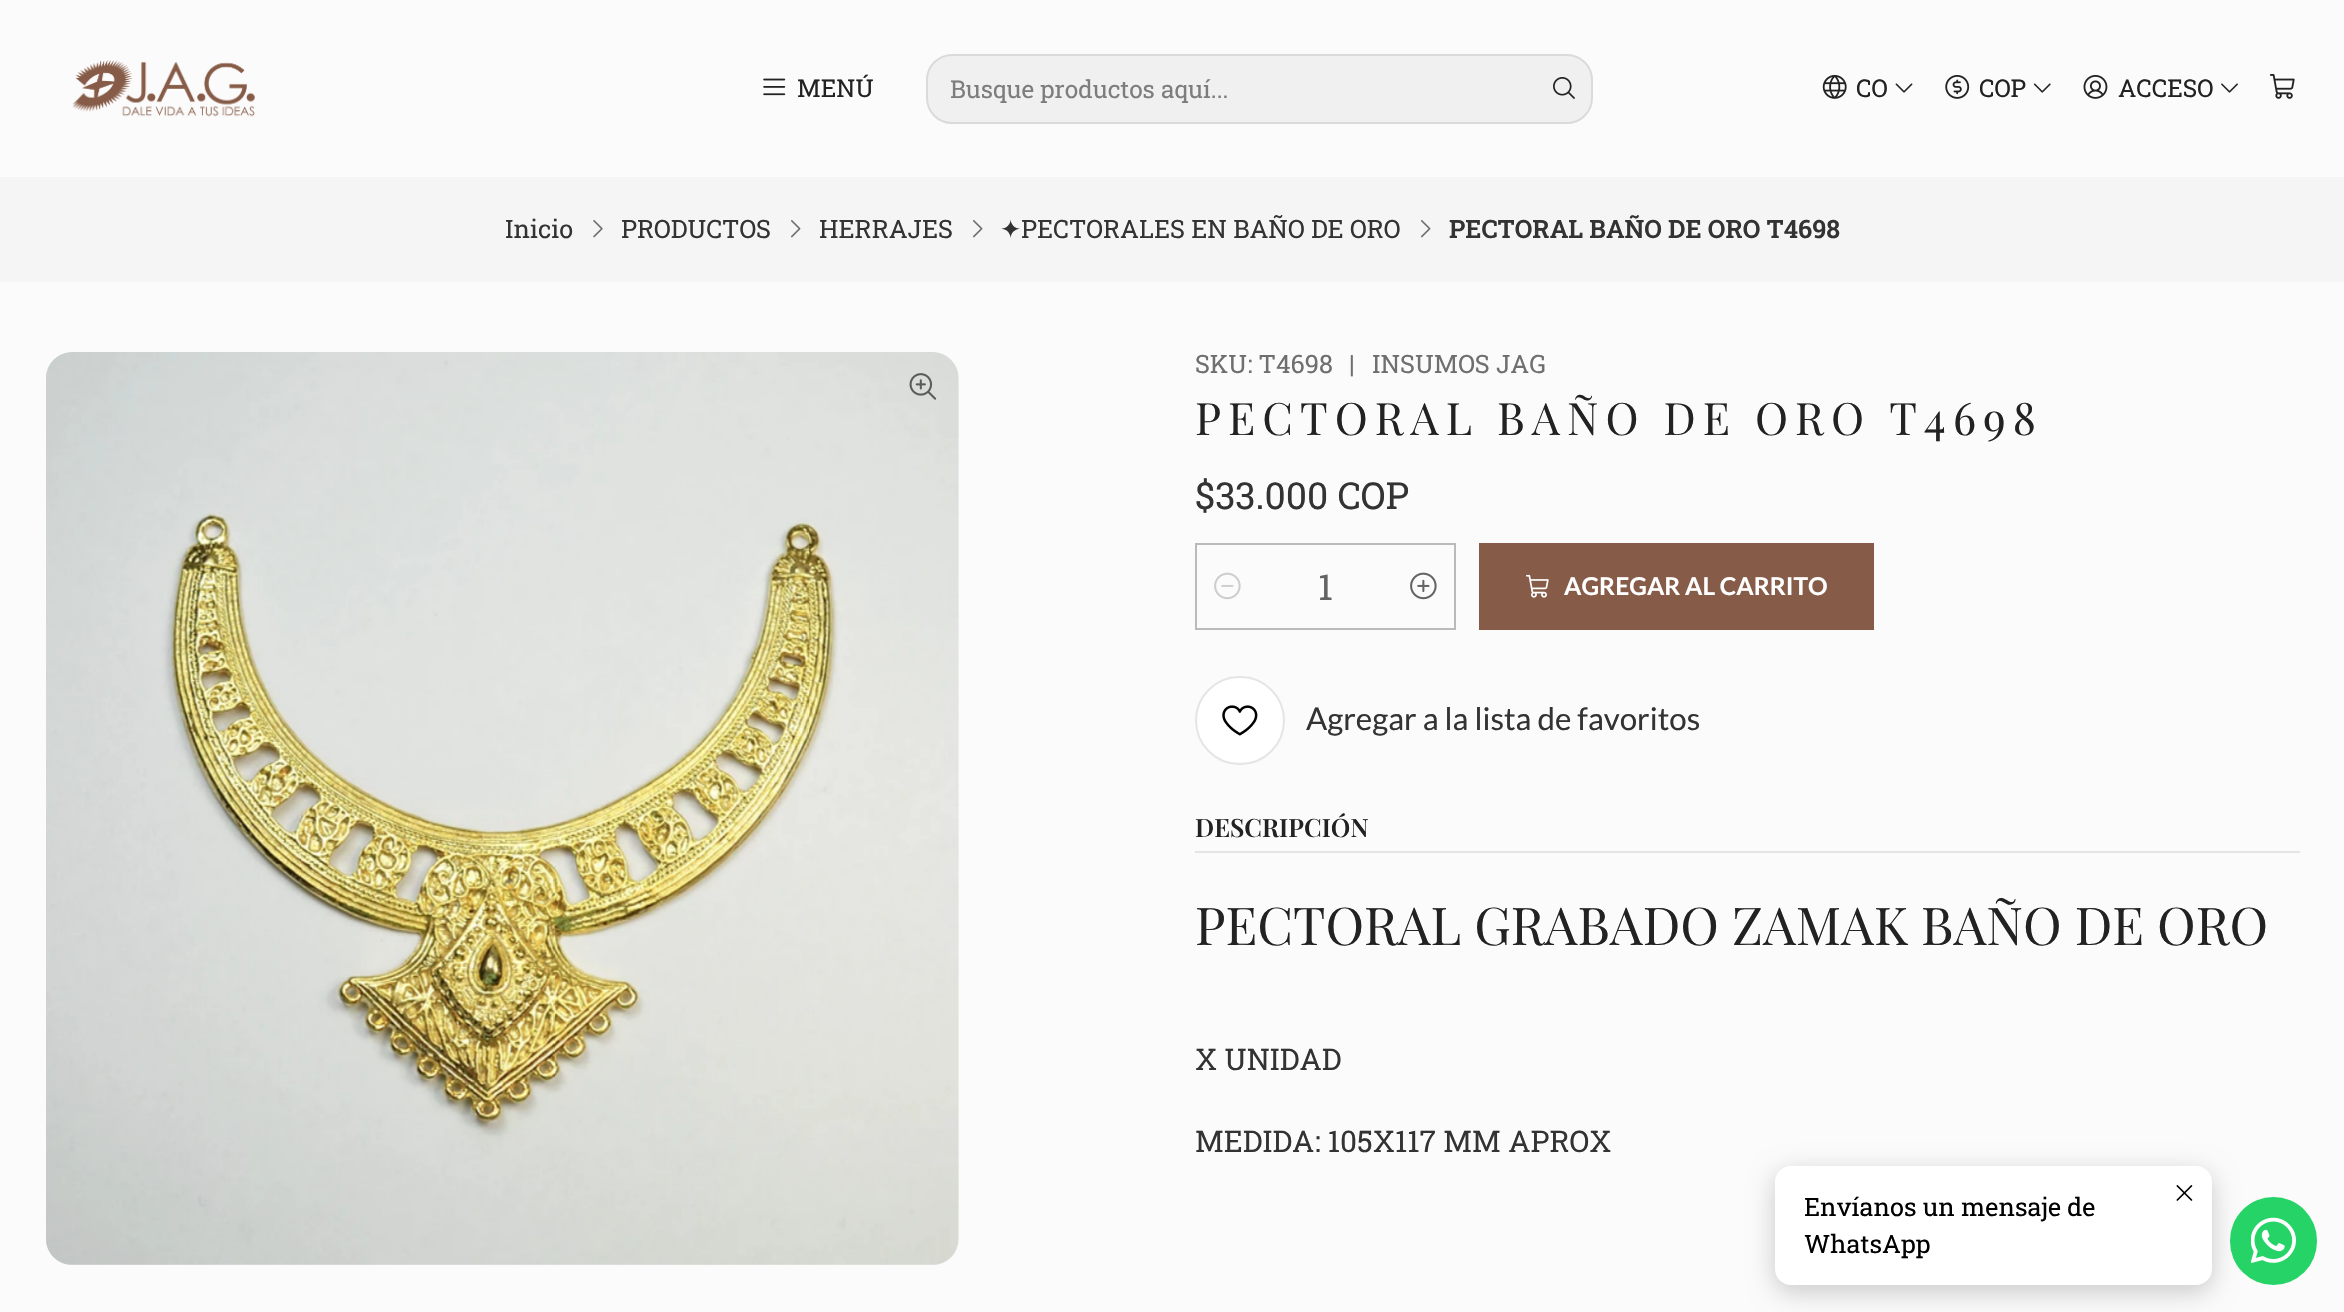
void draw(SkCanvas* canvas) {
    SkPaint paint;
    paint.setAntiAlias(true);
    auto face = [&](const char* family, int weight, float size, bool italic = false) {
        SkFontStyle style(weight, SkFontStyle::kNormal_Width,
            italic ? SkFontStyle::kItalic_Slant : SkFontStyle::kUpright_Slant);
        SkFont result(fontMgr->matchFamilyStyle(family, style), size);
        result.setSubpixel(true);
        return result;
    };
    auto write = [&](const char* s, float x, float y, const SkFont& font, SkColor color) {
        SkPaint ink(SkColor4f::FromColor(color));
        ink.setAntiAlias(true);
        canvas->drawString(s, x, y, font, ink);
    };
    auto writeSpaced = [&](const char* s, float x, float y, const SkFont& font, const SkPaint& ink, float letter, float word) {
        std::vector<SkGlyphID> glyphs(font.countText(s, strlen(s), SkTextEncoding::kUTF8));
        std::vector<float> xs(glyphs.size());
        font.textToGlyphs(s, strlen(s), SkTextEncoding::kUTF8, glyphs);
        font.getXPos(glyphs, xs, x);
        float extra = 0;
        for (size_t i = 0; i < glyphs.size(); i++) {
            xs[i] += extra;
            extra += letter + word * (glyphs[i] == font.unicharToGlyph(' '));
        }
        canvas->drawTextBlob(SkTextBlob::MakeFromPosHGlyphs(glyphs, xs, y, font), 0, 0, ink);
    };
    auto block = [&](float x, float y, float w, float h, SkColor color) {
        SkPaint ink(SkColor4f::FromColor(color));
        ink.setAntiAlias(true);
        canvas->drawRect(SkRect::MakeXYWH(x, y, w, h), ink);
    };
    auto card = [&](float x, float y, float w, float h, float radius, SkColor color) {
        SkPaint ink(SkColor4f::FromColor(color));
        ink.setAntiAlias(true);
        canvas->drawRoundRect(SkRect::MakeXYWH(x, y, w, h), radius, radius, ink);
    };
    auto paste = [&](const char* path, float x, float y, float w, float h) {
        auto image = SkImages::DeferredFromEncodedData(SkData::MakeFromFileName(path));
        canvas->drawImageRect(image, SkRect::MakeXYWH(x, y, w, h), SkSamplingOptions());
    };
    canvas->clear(SkColorSetRGB(252, 251, 251));
    paste("pic1.png", 72, 60, 183, 57);
    paste("pic2.png", 763, 78, 23, 18);
    auto kFont1 = face("Roboto Slab", 400, 24.5f);
    write("MENÚ", 797, 97, kFont1, SkColorSetRGB(34, 34, 34));
    card(926, 54, 667, 70, 26, SkColorSetRGB(241, 240, 240));
    paint.setStyle(SkPaint::kStroke_Style);
    paint.setStrokeWidth(2);
    paint.setColor(SkColorSetARGB(26, 34, 34, 34));
    canvas->drawRoundRect(SkRect::MakeXYWH(927, 55, 665, 68), 25, 25, paint);
    write("Busque productos aquí...", 950, 98, kFont1, SkColorSetRGB(125, 125, 125));
    paste("pic3.png", 1553, 77, 22, 22);
    paste("pic4.png", 1822, 74, 25, 25);
    write("CO", 1856, 97, kFont1, SkColorSetRGB(34, 34, 34));
    paste("pic5.png", 1895, 83, 18, 10);
    paste("pic6.png", 1945, 74, 25, 25);
    write("COP", 1979, 97, kFont1, SkColorSetRGB(34, 34, 34));
    paste("pic7.png", 2033, 83, 18, 10);
    paste("pic8.png", 2083, 74, 25, 25);
    write("ACCESO", 2118, 97, kFont1, SkColorSetRGB(34, 34, 34));
    paste("pic9.png", 2221, 83, 17, 10);
    paste("pic10.png", 2269, 74, 26, 25);
    block(0, 177, 2344, 105, SkColorSetRGB(245, 245, 245));
    auto kFont2 = face("Roboto Slab", 400, 25.25f);
    write("Inicio", 505, 238, kFont2, SkColorSetRGB(51, 51, 51));
    paste("pic11.png", 593, 220, 10, 18);
    write("PRODUCTOS", 621, 238, kFont2, SkColorSetRGB(51, 51, 51));
    paste("pic12.png", 791, 220, 10, 18);
    write("HERRAJES", 819, 238, kFont2, SkColorSetRGB(51, 51, 51));
    paste("pic12.png", 973, 220, 10, 18);
    auto kFont3 = face("DejaVu Sans", 400, 25.25f);
    write("✦", 1000, 238, kFont3, SkColorSetRGB(51, 51, 51));
    write("PECTORALES EN BAÑO DE ORO", 1021, 238, kFont2, SkColorSetRGB(51, 51, 51));
    paste("pic12.png", 1421, 220, 10, 18);
    auto kFont4 = face("Roboto Slab", 600, 25.25f);
    write("PECTORAL BAÑO DE ORO T4698", 1449, 238, kFont4, SkColorSetRGB(51, 51, 51));
    paste("pic13.png", 46, 352, 913, 913);
    paste("pic14.png", 909, 373, 28, 27);
    write("SKU: T4698", 1195, 373, kFont2, SkColorSetRGB(111, 111, 111));
    write("|", 1349, 373, kFont2, SkColorSetRGB(111, 111, 111));
    write("INSUMOS JAG", 1372, 373, kFont2, SkColorSetRGB(111, 111, 111));
    auto kFont5 = face("Playfair Display", 400, 44.6f);
    paint.setStyle(SkPaint::kFill_Style);
    paint.setColor(SkColorSetRGB(34, 34, 34));
    writeSpaced("PECTORAL BAÑO DE ORO T4698", 1195, 435, kFont5, paint, 7, 0);
    auto kFont6 = face("Roboto Slab", 400, 37.25f);
    write("$33.000 COP", 1195, 509, kFont6, SkColorSetRGB(51, 51, 51));
    paint.setStyle(SkPaint::kStroke_Style);
    paint.setColor(SkColorSetRGB(187, 186, 186));
    canvas->drawRect(SkRect::MakeXYWH(1196, 544, 259, 85), paint);
    paste("pic15.png", 1214, 572, 27, 28);
    auto kFont7 = face("Roboto Slab", 400, 36);
    write("1", 1318, 600, kFont7, SkColorSetRGB(99, 99, 99));
    paste("pic16.png", 1410, 572, 27, 28);
    block(1479, 543, 395, 87, SkColorSetRGB(134, 92, 72));
    paste("pic17.png", 1526, 574, 23, 24);
    auto kFont8 = face("Lato", 700, 24.5f);
    write("AGREGAR AL CARRITO", 1564, 595, kFont8, SK_ColorWHITE);
    paint.setStyle(SkPaint::kFill_Style);
    paint.setColor(SK_ColorWHITE);
    canvas->drawRoundRect(SkRect::MakeXYWH(1196, 677, 88, 87), 43.5f, 43.5f, paint);
    paint.setStyle(SkPaint::kStroke_Style);
    paint.setColor(SkColorSetRGB(229, 229, 229));
    canvas->drawRoundRect(SkRect::MakeXYWH(1196, 677, 88, 87), 43.5f, 43.5f, paint);
    paste("pic18.png", 1222, 705, 36, 31);
    auto kFont9 = face("Lato", 400, 31.25f);
    write("Agregar a la lista de favoritos", 1306, 730, kFont9, SkColorSetRGB(51, 51, 51));
    block(1195, 851, 1105, 2, SkColorSetRGB(230, 229, 229));
    auto kFont10 = face("Playfair Display", 600, 25.25f);
    write("DESCRIPCIÓN", 1195, 837, kFont10, SkColorSetRGB(34, 34, 34));
    auto kFont11 = face("Playfair Display", 400, 52.1f);
    write("PECTORAL GRABADO ZAMAK BAÑO DE ORO", 1195, 945, kFont11, SkColorSetRGB(34, 34, 34));
    auto kFont12 = face("Roboto Slab", 400, 29.75f);
    write("X UNIDAD", 1195, 1070, kFont12, SkColorSetRGB(51, 51, 51));
    write("MEDIDA: 105X117 MM APROX", 1195, 1152, kFont12, SkColorSetRGB(51, 51, 51));
    paint.setStyle(SkPaint::kFill_Style);
    paint.setColor(SkColorSetARGB(51, 0, 0, 0));
    paint.setMaskFilter(SkMaskFilter::MakeBlur(kNormal_SkBlurStyle, 13));
    canvas->drawRoundRect(SkRect::MakeXYWH(1775, 1173, 437, 119), 16, 16, paint);
    paint.setMaskFilter(nullptr);
    card(1775, 1166, 437, 119, 16, SK_ColorWHITE);
    paste("pic19.png", 2176, 1185, 17, 16);
    write("Envíanos un mensaje de", 1804, 1216, kFont2, SK_ColorBLACK);
    write("WhatsApp", 1804, 1253, kFont2, SK_ColorBLACK);
    card(2230, 1197, 87, 88, 43.5f, SkColorSetRGB(37, 211, 102));
    paste("pic20.png", 2251, 1217, 45, 46);
}
